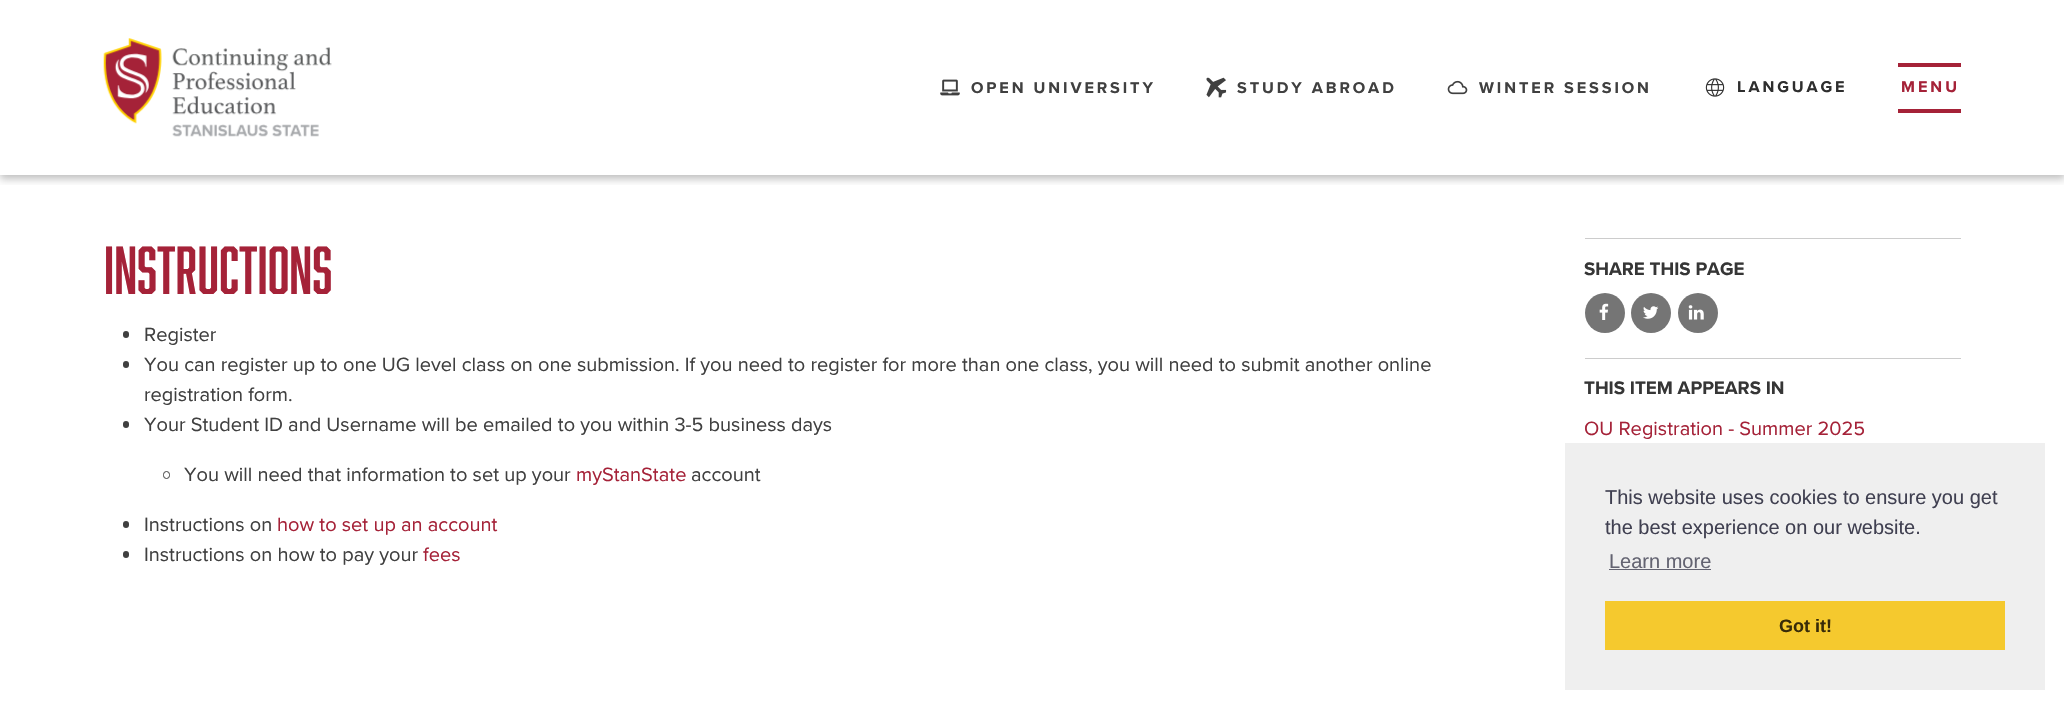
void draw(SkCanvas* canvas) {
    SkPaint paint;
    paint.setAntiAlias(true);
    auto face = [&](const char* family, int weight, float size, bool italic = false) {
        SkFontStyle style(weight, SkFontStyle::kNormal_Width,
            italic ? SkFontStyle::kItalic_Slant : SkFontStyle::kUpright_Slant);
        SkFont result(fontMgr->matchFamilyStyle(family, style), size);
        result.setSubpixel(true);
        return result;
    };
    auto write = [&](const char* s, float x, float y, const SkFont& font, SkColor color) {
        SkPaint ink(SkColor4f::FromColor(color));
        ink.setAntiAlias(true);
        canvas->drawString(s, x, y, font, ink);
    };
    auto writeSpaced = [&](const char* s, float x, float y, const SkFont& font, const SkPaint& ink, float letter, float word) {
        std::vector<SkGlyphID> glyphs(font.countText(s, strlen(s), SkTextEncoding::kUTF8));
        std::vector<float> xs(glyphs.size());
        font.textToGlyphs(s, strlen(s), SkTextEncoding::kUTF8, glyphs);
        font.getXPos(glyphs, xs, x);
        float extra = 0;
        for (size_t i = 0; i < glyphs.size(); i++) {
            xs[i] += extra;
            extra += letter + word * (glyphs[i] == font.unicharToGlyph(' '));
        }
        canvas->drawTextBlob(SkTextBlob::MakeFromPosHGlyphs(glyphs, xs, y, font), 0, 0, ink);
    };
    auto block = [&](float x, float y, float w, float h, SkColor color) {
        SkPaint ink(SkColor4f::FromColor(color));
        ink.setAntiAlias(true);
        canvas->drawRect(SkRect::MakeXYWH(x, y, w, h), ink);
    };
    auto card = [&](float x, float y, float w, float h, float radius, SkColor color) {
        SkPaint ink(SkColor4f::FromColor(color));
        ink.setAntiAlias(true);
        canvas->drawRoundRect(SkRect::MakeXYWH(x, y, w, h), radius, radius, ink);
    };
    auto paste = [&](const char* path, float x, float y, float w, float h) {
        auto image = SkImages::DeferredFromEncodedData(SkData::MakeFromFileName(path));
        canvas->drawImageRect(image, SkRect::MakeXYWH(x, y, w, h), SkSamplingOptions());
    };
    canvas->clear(SK_ColorWHITE);
    canvas->save();
    canvas->clipRect(SkRect::MakeXYWH(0, 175, 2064, 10));
    paint.setColor(SkColorSetARGB(64, 0, 0, 0));
    paint.setMaskFilter(SkMaskFilter::MakeBlur(kNormal_SkBlurStyle, 4));
    canvas->drawRect(SkRect::MakeXYWH(0, 4, 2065, 175), paint);
    paint.setMaskFilter(nullptr);
    canvas->restore();
    paste("pic1.png", 103, 38, 229, 99);
    paste("pic2.png", 940, 79, 20, 17);
    auto kFont1 = face("Proxima Nova", 700, 16.25f);
    paint.setColor(SkColorSetRGB(64, 64, 64));
    writeSpaced("OPEN UNIVERSITY", 971, 93, kFont1, paint, 2.9f, 0);
    paste("pic3.png", 1206, 77, 21, 21);
    writeSpaced("STUDY ABROAD", 1237, 93, kFont1, paint, 2.9f, 0);
    paste("pic4.png", 1447, 80, 21, 15);
    writeSpaced("WINTER SESSION", 1479, 93, kFont1, paint, 2.9f, 0);
    paste("pic5.png", 1705, 78, 20, 19);
    paint.setColor(SkColorSetRGB(46, 46, 46));
    writeSpaced("LANGUAGE", 1737, 92, kFont1, paint, 2.9f, 0);
    block(1898, 63, 63, 4, SkColorSetRGB(165, 34, 56));
    block(1898, 109, 63, 4, SkColorSetRGB(165, 34, 56));
    paint.setColor(SkColorSetRGB(165, 34, 56));
    writeSpaced("MENU", 1901, 92, kFont1, paint, 3, 0);
    auto kFont2 = face("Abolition", 400, 62.5f);
    write("Instructions", 104, 294, kFont2, SkColorSetRGB(165, 34, 56));
    card(123, 331, 6, 7, 3, SkColorSetRGB(64, 64, 64));
    auto kFont3 = face("Proxima Nova", 400, 20);
    write("Register", 144, 341, kFont3, SkColorSetRGB(64, 64, 64));
    card(123, 361, 6, 7, 3, SkColorSetRGB(64, 64, 64));
    write("You can register up to one UG level class on one submission. If you need to register for more than one class, you will need to submit another online", 144, 371, kFont3, SkColorSetRGB(64, 64, 64));
    write("registration form.", 144, 401, kFont3, SkColorSetRGB(64, 64, 64));
    card(123, 421, 6, 7, 3, SkColorSetRGB(64, 64, 64));
    write("Your Student ID and Username will be emailed to you within 3-5 business days", 144, 431, kFont3, SkColorSetRGB(64, 64, 64));
    paint.setStyle(SkPaint::kStroke_Style);
    paint.setStrokeWidth(1);
    paint.setColor(SkColorSetRGB(64, 64, 64));
    canvas->drawRoundRect(SkRect::MakeXYWH(163.5f, 471.5f, 6, 7), 3, 3, paint);
    write("You will need that information to set up your", 184, 481, kFont3, SkColorSetRGB(64, 64, 64));
    write("myStanState", 576, 481, kFont3, SkColorSetRGB(165, 34, 56));
    write("account", 691, 481, kFont3, SkColorSetRGB(64, 64, 64));
    card(123, 521, 6, 7, 3, SkColorSetRGB(64, 64, 64));
    write("Instructions on", 144, 531, kFont3, SkColorSetRGB(64, 64, 64));
    write("how to set up an account", 277, 531, kFont3, SkColorSetRGB(165, 34, 56));
    card(123, 551, 6, 7, 3, SkColorSetRGB(64, 64, 64));
    write("Instructions on how to pay your", 144, 561, kFont3, SkColorSetRGB(64, 64, 64));
    write("fees", 423, 561, kFont3, SkColorSetRGB(165, 34, 56));
    block(1585, 238, 376, 1, SkColorSetRGB(204, 204, 204));
    auto kFont4 = face("Proxima Nova", 700, 18.75f);
    write("SHARE THIS PAGE", 1584, 275, kFont4, SkColorSetRGB(54, 54, 54));
    paint.setStyle(SkPaint::kFill_Style);
    paint.setColor(SkColorSetRGB(117, 117, 117));
    canvas->drawCircle(1605, 313, 20, paint);
    paste("pic6.png", 1599, 303, 10, 17);
    canvas->drawCircle(1651, 313, 20, paint);
    paste("pic7.png", 1643, 306, 16, 13);
    canvas->drawCircle(1698, 313, 20, paint);
    paste("pic8.png", 1688, 305, 16, 15);
    block(1585, 358, 376, 1, SkColorSetRGB(204, 204, 204));
    write("THIS ITEM APPEARS IN", 1584, 394, kFont4, SkColorSetRGB(54, 54, 54));
    write("OU Registration - Summer 2025", 1584, 435, kFont3, SkColorSetRGB(165, 34, 56));
    block(1565, 443, 480, 247, SkColorSetRGB(239, 239, 239));
    auto kFont5 = face("Liberation Sans", 400, 20);
    write("This website uses cookies to ensure you get", 1605, 504, kFont5, SkColorSetRGB(64, 64, 81));
    write("the best experience on our website.", 1605, 534, kFont5, SkColorSetRGB(64, 64, 81));
    write("Learn more", 1609, 568, kFont5, SkColorSetRGB(99, 99, 113));
    block(1609, 569, 102, 1, SkColorSetRGB(99, 99, 113));
    block(1605, 601, 400, 49, SkColorSetRGB(245, 201, 46));
    auto kFont6 = face("Liberation Sans", 700, 18);
    write("Got it!", 1779, 632, kFont6, SkColorSetRGB(56, 43, 8));
}
